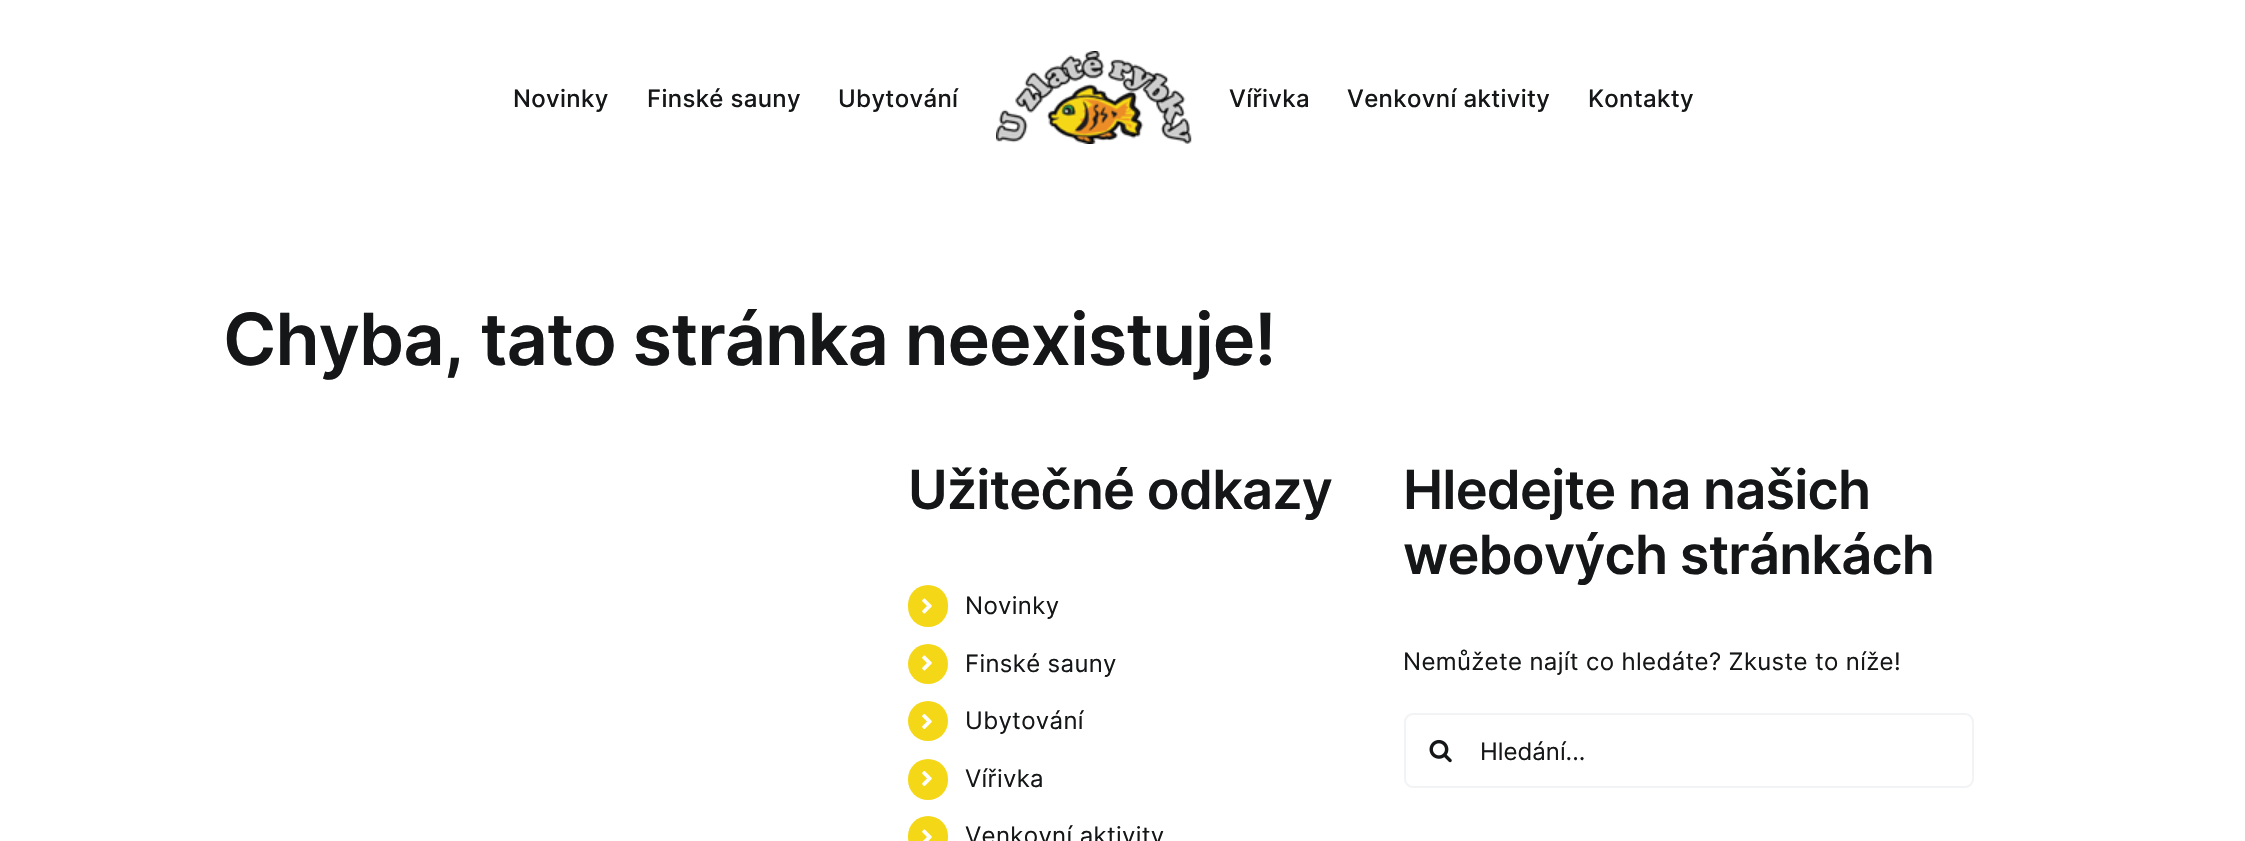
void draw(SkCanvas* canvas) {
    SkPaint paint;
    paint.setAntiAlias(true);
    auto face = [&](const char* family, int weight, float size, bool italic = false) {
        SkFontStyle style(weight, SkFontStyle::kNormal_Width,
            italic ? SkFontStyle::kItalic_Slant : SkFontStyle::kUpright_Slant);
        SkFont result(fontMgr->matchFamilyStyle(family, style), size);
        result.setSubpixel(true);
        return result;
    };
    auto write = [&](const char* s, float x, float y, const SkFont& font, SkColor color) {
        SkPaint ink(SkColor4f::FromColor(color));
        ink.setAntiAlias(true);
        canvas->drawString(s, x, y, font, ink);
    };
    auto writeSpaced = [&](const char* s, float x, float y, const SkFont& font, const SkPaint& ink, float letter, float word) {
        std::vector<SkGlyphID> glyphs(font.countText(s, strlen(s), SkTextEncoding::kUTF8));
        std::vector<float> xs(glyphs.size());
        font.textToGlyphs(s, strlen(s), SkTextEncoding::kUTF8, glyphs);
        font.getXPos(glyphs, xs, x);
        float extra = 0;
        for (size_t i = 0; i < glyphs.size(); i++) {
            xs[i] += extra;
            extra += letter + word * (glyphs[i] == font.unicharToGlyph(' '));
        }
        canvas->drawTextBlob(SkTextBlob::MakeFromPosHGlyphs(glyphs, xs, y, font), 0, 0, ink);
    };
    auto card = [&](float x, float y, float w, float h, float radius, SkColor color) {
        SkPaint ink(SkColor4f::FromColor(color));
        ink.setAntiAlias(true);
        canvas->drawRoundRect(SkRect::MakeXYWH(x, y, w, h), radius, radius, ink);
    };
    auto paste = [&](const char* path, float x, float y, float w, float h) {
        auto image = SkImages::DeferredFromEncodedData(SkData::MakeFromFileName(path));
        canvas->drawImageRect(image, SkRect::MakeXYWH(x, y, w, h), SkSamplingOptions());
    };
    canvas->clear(SK_ColorWHITE);
    auto kFont1 = face("Inter", 500, 24);
    paint.setColor(SkColorSetRGB(20, 22, 23));
    writeSpaced("Novinky", 513, 107, kFont1, paint, 0.35f, 0);
    writeSpaced("Finské sauny", 647, 107, kFont1, paint, 0.35f, 0);
    writeSpaced("Ubytování", 838, 107, kFont1, paint, 0.35f, 0);
    paste("pic1.png", 996, 51, 196, 93);
    writeSpaced("Vířivka", 1229, 107, kFont1, paint, 0.35f, 0);
    writeSpaced("Venkovní aktivity", 1347, 107, kFont1, paint, 0.35f, 0);
    writeSpaced("Kontakty", 1588, 107, kFont1, paint, 0.35f, 0);
    auto kFont2 = face("Inter", 600, 72);
    writeSpaced("Chyba, tato stránka neexistuje!", 223, 365, kFont2, paint, -1.1f, 0);
    auto kFont3 = face("Inter", 600, 54);
    writeSpaced("Užitečné odkazy", 908, 509, kFont3, paint, -0.8f, 0);
    card(908, 585, 40, 42, 20, SkColorSetRGB(244, 215, 23));
    paste("pic2.png", 922, 598, 10, 16);
    auto kFont4 = face("Inter", 400, 24);
    writeSpaced("Novinky", 965, 614, kFont4, paint, 0.35f, 0);
    paint.setColor(SkColorSetRGB(244, 215, 23));
    canvas->drawCircle(928, 664, 20, paint);
    paste("pic2.png", 922, 655, 10, 16);
    paint.setColor(SkColorSetRGB(20, 22, 23));
    writeSpaced("Finské sauny", 965, 672, kFont4, paint, 0.35f, 0);
    paint.setColor(SkColorSetRGB(244, 215, 23));
    canvas->drawCircle(928, 721, 20, paint);
    paste("pic3.png", 922, 714, 10, 15);
    paint.setColor(SkColorSetRGB(20, 22, 23));
    writeSpaced("Ubytování", 965, 729, kFont4, paint, 0.35f, 0);
    card(908, 759, 40, 41, 20, SkColorSetRGB(244, 215, 23));
    paste("pic3.png", 922, 771, 10, 15);
    writeSpaced("Vířivka", 965, 787, kFont4, paint, 0.35f, 0);
    card(908, 816, 40, 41, 20, SkColorSetRGB(244, 215, 23));
    paste("pic4.png", 922, 829, 10, 12);
    writeSpaced("Venkovní aktivity", 965, 844, kFont4, paint, 0.35f, 0);
    writeSpaced("Hledejte na našich", 1403, 509, kFont3, paint, -0.8f, 0);
    writeSpaced("webových stránkách", 1403, 574, kFont3, paint, -0.8f, 0);
    writeSpaced("Nemůžete najít co hledáte? Zkuste to níže!", 1403, 670, kFont4, paint, 0.35f, 0);
    paint.setStyle(SkPaint::kStroke_Style);
    paint.setStrokeWidth(2);
    paint.setColor(SkColorSetRGB(242, 243, 245));
    canvas->drawRoundRect(SkRect::MakeXYWH(1405, 714, 568, 73), 8, 8, paint);
    paste("pic5.png", 1429, 739, 23, 24);
    write("Hledání...", 1480, 760, kFont4, SkColorSetRGB(20, 22, 23));
}
